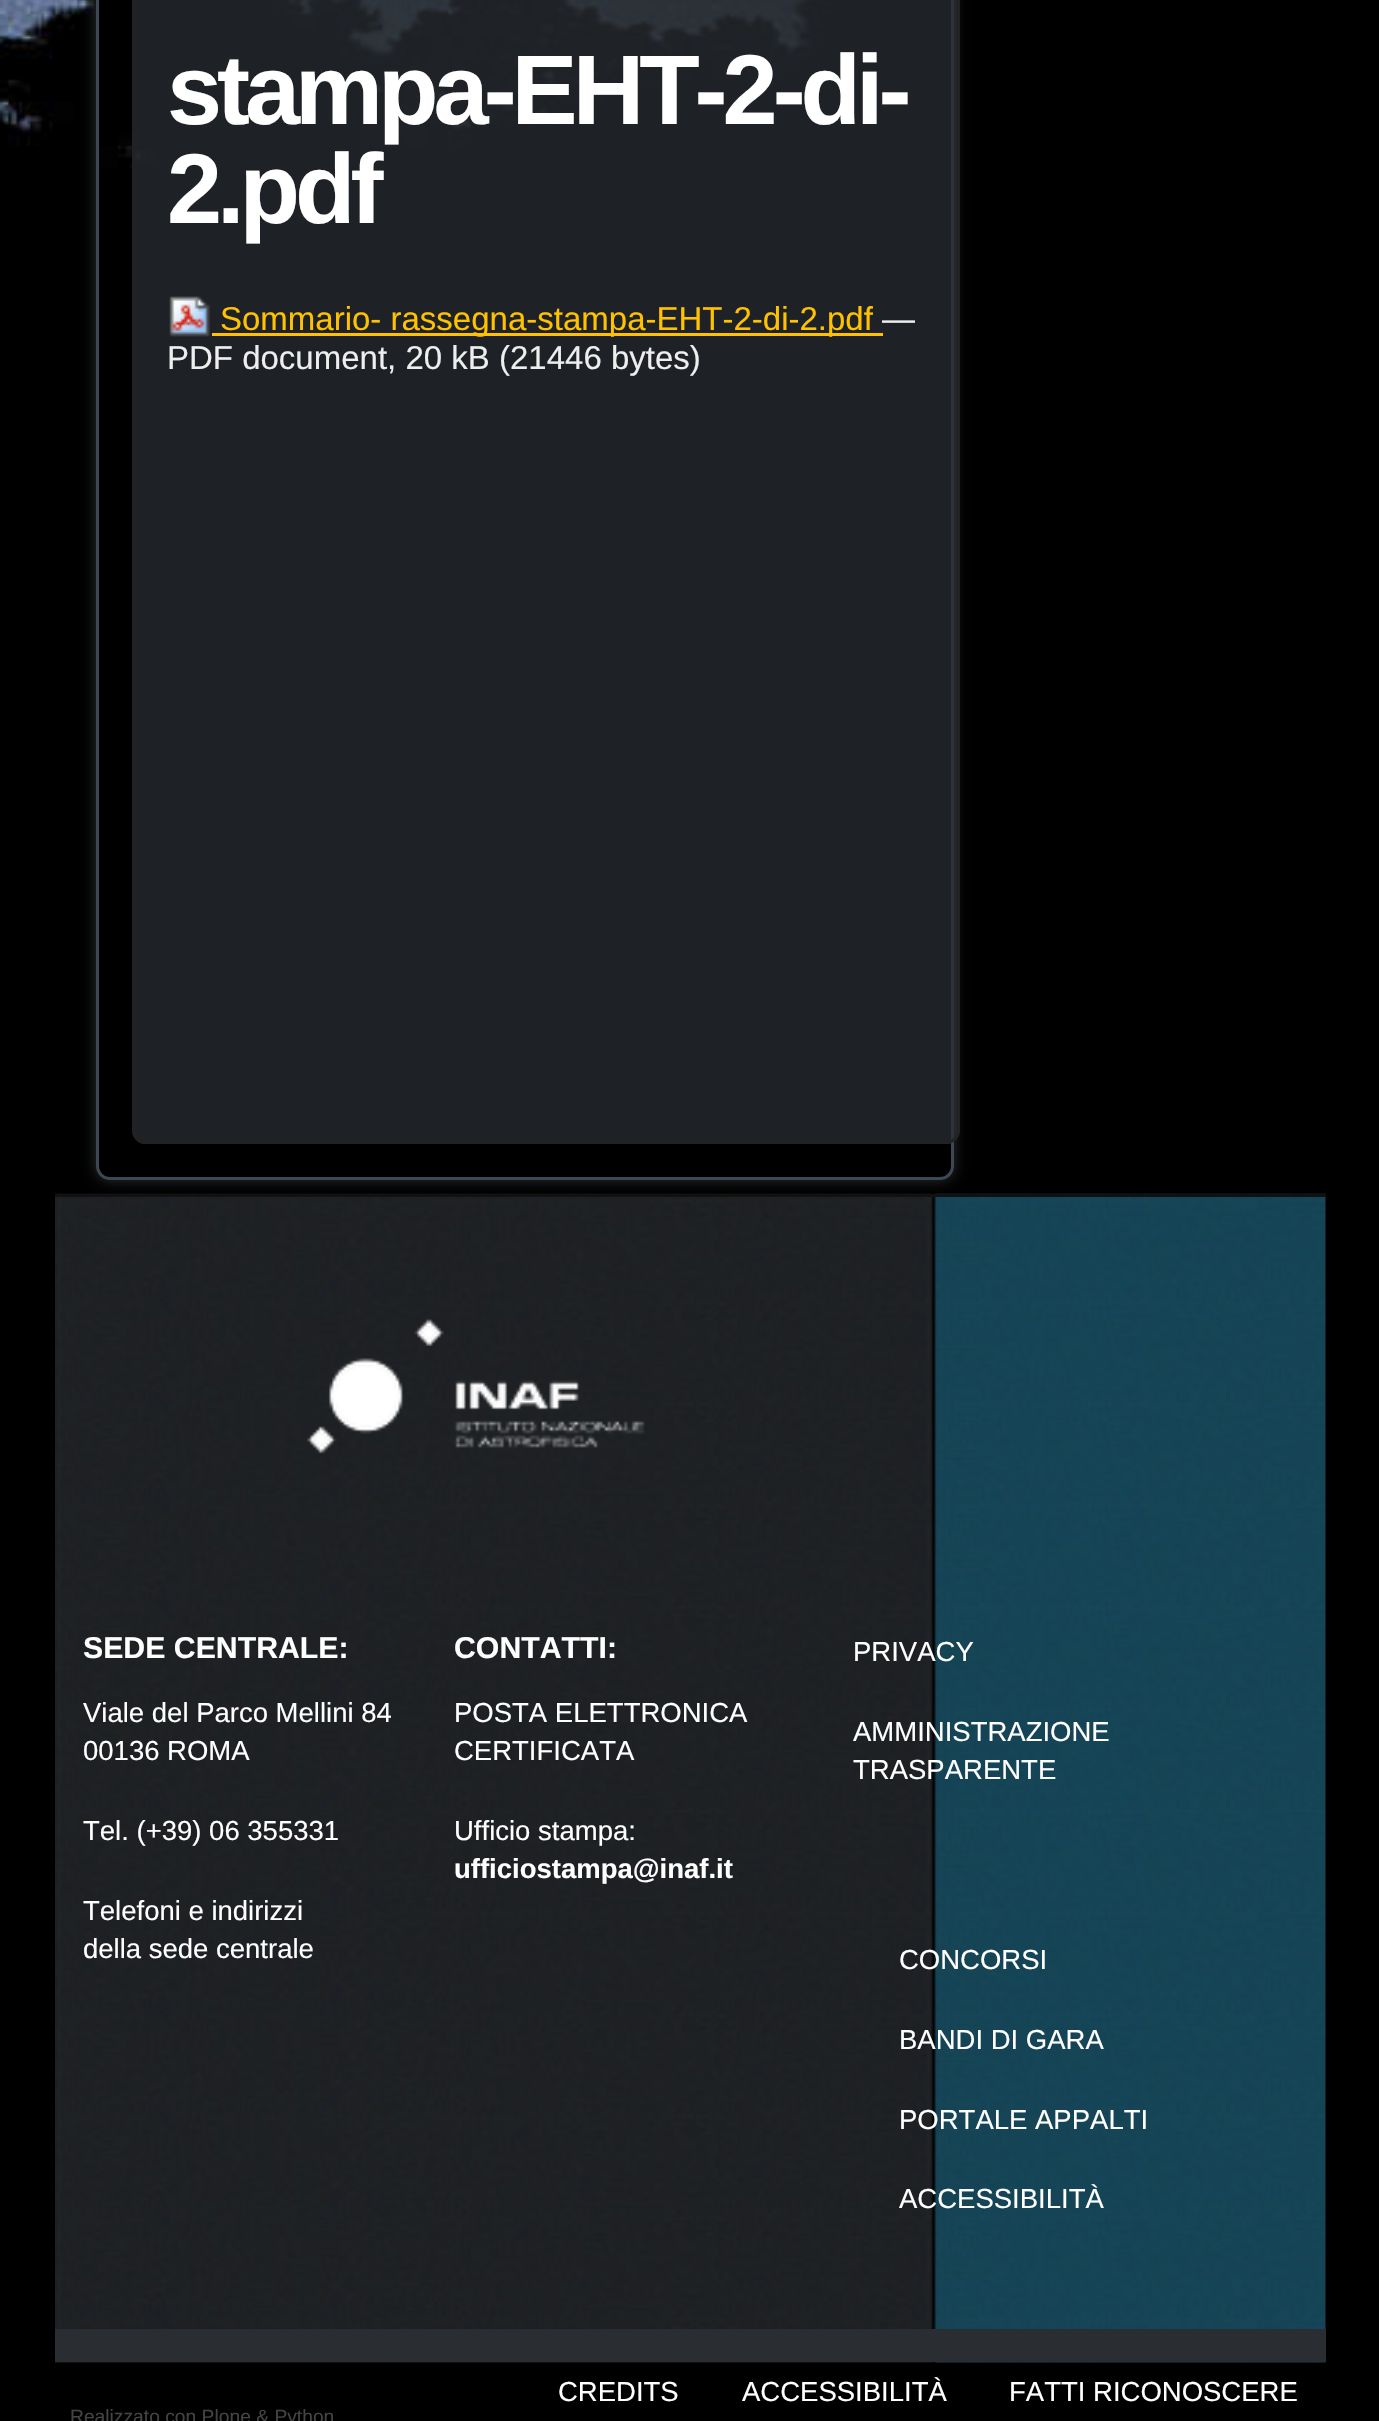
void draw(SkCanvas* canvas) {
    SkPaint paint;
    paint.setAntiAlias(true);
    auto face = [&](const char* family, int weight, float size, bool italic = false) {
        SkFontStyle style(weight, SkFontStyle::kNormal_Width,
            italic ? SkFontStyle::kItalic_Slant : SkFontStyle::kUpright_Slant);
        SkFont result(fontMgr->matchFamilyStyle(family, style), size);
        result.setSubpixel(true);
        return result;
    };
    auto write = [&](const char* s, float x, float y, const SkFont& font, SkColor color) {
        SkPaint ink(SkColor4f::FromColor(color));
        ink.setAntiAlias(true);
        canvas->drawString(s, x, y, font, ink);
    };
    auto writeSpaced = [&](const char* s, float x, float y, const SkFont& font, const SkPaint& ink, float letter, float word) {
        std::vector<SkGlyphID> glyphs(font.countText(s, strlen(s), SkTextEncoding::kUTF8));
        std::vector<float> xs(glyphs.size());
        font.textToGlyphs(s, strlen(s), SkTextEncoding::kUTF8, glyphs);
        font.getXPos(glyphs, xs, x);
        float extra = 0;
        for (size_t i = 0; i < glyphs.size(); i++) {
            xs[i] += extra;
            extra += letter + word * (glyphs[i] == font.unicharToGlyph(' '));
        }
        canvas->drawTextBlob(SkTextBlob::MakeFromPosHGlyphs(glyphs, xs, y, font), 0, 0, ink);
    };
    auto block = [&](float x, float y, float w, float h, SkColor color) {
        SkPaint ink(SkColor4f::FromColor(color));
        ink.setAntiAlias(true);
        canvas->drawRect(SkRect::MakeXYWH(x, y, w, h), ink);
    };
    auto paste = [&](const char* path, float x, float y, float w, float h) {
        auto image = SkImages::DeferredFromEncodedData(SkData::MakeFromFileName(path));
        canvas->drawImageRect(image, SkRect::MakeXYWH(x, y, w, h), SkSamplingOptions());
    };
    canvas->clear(SK_ColorBLACK);
    paste("pic1.png", 0, 0, 832, 168);
    canvas->save();
    canvas->clipPath(SkPathBuilder(SkPathFillType::kEvenOdd).moveTo(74, 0).lineTo(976, 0).lineTo(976, 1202).lineTo(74, 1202).close().moveTo(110, -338).lineTo(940, -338).cubicTo(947.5f, -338, 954, -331.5f, 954, -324).lineTo(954, 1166).cubicTo(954, 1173.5f, 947.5f, 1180, 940, 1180).lineTo(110, 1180).cubicTo(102.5f, 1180, 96, 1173.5f, 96, 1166).lineTo(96, -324).cubicTo(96, -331.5f, 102.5f, -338, 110, -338).close().detach(), true);
    paint.setColor(SkColorSetRGB(42, 46, 50));
    paint.setMaskFilter(SkMaskFilter::MakeBlur(kNormal_SkBlurStyle, 7));
    canvas->drawRoundRect(SkRect::MakeXYWH(96, -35, 858, 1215), 14, 14, paint);
    paint.setMaskFilter(nullptr);
    canvas->restore();
    block(127, 0, 681, 159, SkColorSetARGB(51, 0, 0, 0));
    paint.setStyle(SkPaint::kStroke_Style);
    paint.setStrokeWidth(3);
    paint.setColor(SkColorSetRGB(62, 72, 82));
    canvas->drawRoundRect(SkRect::MakeXYWH(97.5f, -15.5f, 855, 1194), 12.5f, 12.5f, paint);
    paste("pic2.png", 132, 0, 828, 1144);
    paint.setColor(SkColorSetRGB(34, 34, 34));
    canvas->drawRoundRect(SkRect::MakeXYWH(133.5f, -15.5f, 825, 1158), 12.5f, 12.5f, paint);
    auto kFont1 = face("Liberation Sans", 700, 99);
    paint.setStyle(SkPaint::kFill_Style);
    paint.setColor(SK_ColorWHITE);
    writeSpaced("stampa-EHT-2-di-", 167, 124, kFont1, paint, -5, 0);
    writeSpaced("2.pdf", 167, 223, kFont1, paint, -5, 0);
    paste("pic3.png", 169, 296, 41, 41);
    block(212, 333, 671, 3, SkColorSetRGB(255, 194, 0));
    auto kFont2 = face("Liberation Sans", 400, 33);
    write("Sommario- rassegna-stampa-EHT-2-di-2.pdf", 220, 330, kFont2, SkColorSetRGB(255, 194, 0));
    write("—", 882, 330, kFont2, SkColorSetRGB(238, 238, 238));
    write("PDF document, 20 kB (21446 bytes)", 167, 369, kFont2, SkColorSetRGB(238, 238, 238));
    paste("pic4.png", 55, 1193, 1271, 1170);
    block(55, 1194, 1271, 3, SkColorSetRGB(17, 17, 17));
    block(55, 2329, 1271, 33, SkColorSetRGB(42, 46, 50));
    paste("pic5.png", 307, 1319, 338, 135);
    auto kFont3 = face("Liberation Sans", 700, 30.25f);
    write("SEDE CENTRALE:", 83, 1658, kFont3, SK_ColorWHITE);
    auto kFont4 = face("Liberation Sans", 400, 27.5f);
    write("Viale del Parco Mellini 84", 83, 1722, kFont4, SK_ColorWHITE);
    write("00136 ROMA", 83, 1760, kFont4, SK_ColorWHITE);
    write("Tel. (+39) 06 355331", 83, 1840, kFont4, SK_ColorWHITE);
    write("Telefoni e indirizzi", 83, 1920, kFont4, SK_ColorWHITE);
    write("della sede centrale", 83, 1958, kFont4, SK_ColorWHITE);
    write("CONTATTI:", 454, 1658, kFont3, SK_ColorWHITE);
    write("POSTA ELETTRONICA", 454, 1722, kFont4, SK_ColorWHITE);
    write("CERTIFICATA", 454, 1760, kFont4, SK_ColorWHITE);
    write("Ufficio stampa:", 454, 1840, kFont4, SK_ColorWHITE);
    auto kFont5 = face("Liberation Sans", 700, 27.5f);
    write("ufficiostampa@inaf.it", 454, 1878, kFont5, SK_ColorWHITE);
    write("PRIVACY", 853, 1661, kFont4, SK_ColorWHITE);
    write("AMMINISTRAZIONE", 853, 1741, kFont4, SK_ColorWHITE);
    write("TRASPARENTE", 853, 1779, kFont4, SK_ColorWHITE);
    write("CONCORSI", 899, 1969, kFont4, SK_ColorWHITE);
    write("BANDI DI GARA", 899, 2049, kFont4, SK_ColorWHITE);
    write("PORTALE APPALTI", 899, 2129, kFont4, SK_ColorWHITE);
    write("ACCESSIBILITÀ", 899, 2208, kFont4, SK_ColorWHITE);
    write("CREDITS", 558, 2401, kFont4, SK_ColorWHITE);
    write("ACCESSIBILITÀ", 742, 2401, kFont4, SK_ColorWHITE);
    write("FATTI RICONOSCERE", 1009, 2401, kFont4, SK_ColorWHITE);
    auto kFont6 = face("Liberation Sans", 400, 19.25f);
    write("Realizzato con Plone & Python", 70, 2423, kFont6, SkColorSetRGB(68, 68, 68));
}
